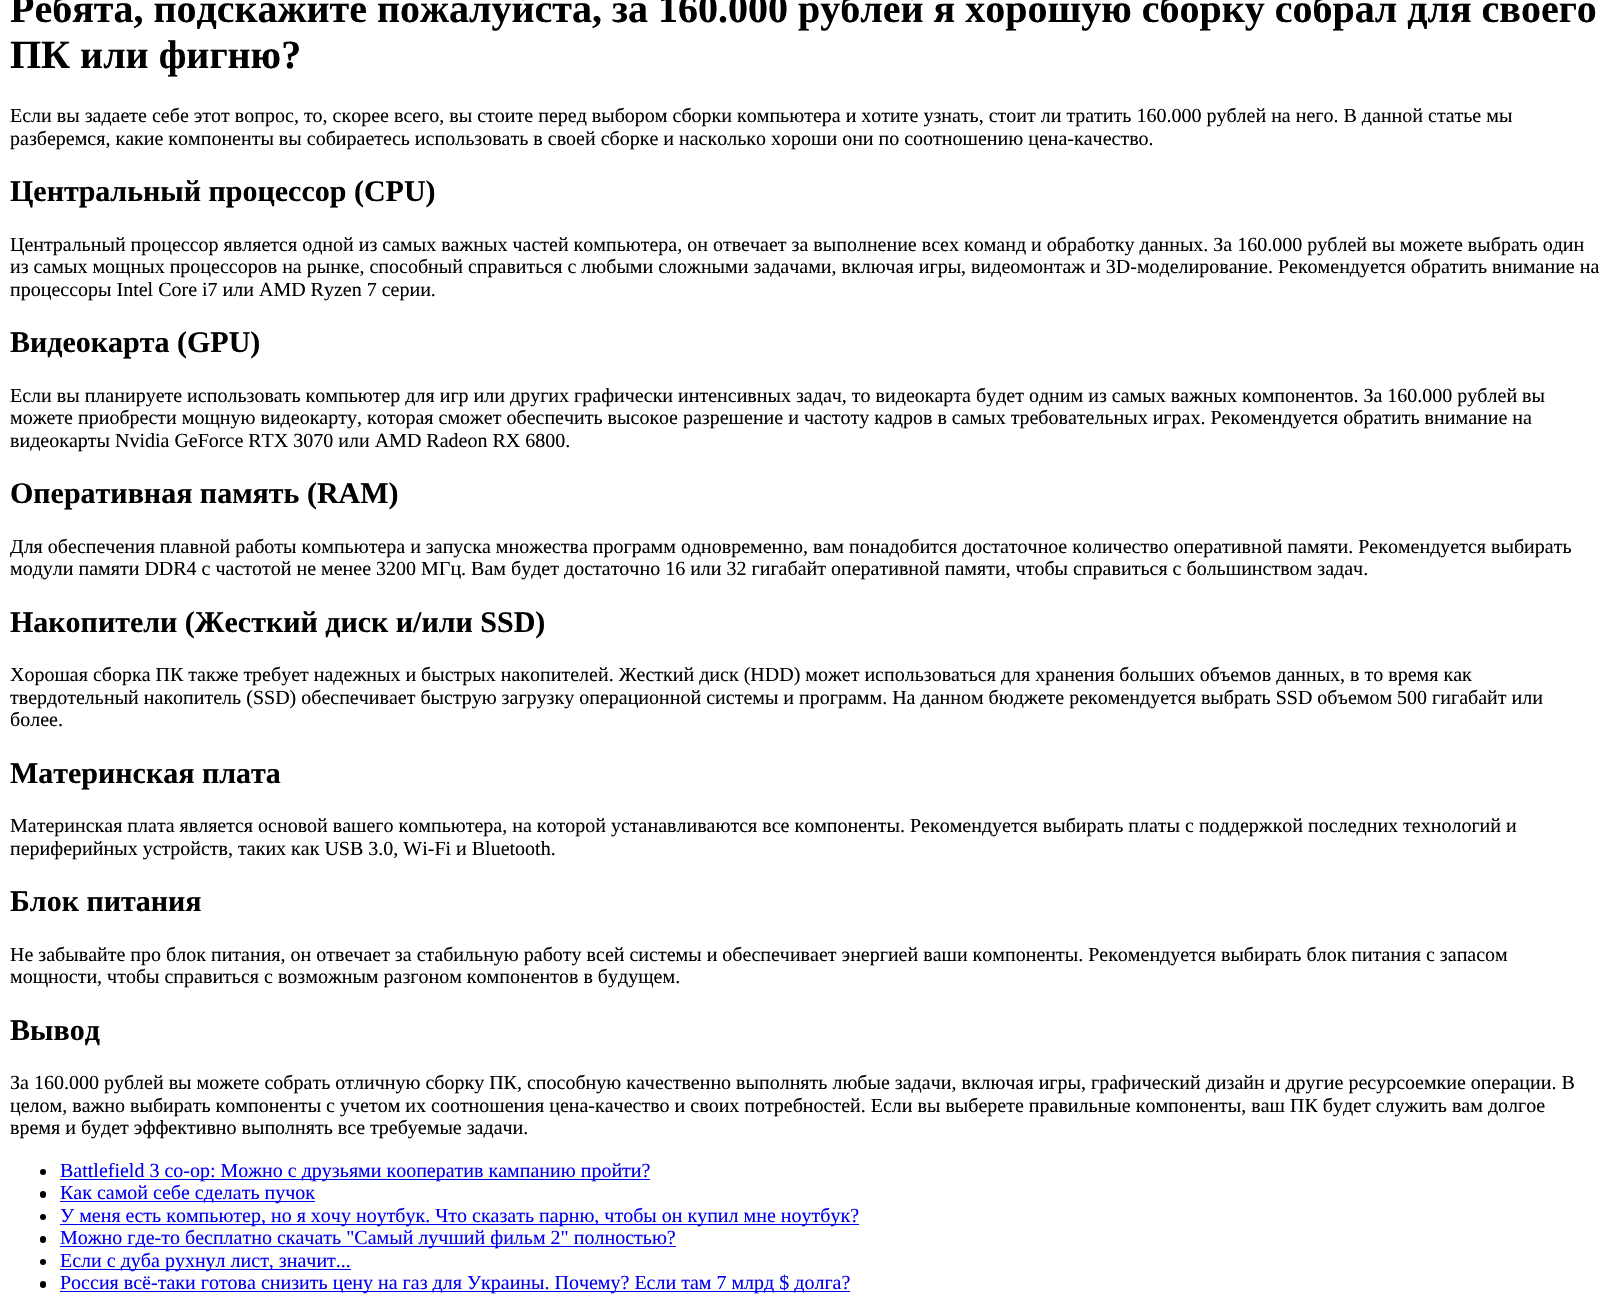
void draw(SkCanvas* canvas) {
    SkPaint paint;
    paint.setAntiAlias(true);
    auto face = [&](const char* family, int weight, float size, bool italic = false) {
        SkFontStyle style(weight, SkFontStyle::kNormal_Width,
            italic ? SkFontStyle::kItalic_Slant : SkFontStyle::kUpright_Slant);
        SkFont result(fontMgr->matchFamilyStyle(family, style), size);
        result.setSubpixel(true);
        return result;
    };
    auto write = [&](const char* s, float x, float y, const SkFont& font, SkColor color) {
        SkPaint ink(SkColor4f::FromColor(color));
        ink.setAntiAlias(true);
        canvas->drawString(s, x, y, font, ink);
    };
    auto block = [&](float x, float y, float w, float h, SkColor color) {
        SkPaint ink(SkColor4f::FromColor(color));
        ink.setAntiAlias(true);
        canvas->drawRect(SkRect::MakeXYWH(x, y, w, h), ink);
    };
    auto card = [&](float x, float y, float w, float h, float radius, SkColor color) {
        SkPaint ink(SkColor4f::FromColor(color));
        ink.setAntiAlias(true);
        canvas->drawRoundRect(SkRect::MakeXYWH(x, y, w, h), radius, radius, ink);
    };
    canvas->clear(SK_ColorWHITE);
    auto kFont1 = face("Liberation Serif", 700, 40);
    write("Ребята, подскажите пожалуйста, за 160.000 рублей я хорошую сборку собрал для своего", 10, 22, kFont1, SK_ColorBLACK);
    write("ПК или фигню?", 10, 68, kFont1, SK_ColorBLACK);
    auto kFont2 = face("Liberation Serif", 400, 20);
    write("Если вы задаете себе этот вопрос, то, скорее всего, вы стоите перед выбором сборки компьютера и хотите узнать, стоит ли тратить 160.000 рублей на него. В данной статье мы", 10, 122, kFont2, SK_ColorBLACK);
    write("разберемся, какие компоненты вы собираетесь использовать в своей сборке и насколько хороши они по соотношению цена-качество.", 10, 145, kFont2, SK_ColorBLACK);
    auto kFont3 = face("Liberation Serif", 700, 30);
    write("Центральный процессор (CPU)", 10, 201, kFont3, SK_ColorBLACK);
    write("Центральный процессор является одной из самых важных частей компьютера, он отвечает за выполнение всех команд и обработку данных. За 160.000 рублей вы можете выбрать один", 10, 251, kFont2, SK_ColorBLACK);
    write("из самых мощных процессоров на рынке, способный справиться с любыми сложными задачами, включая игры, видеомонтаж и 3D-моделирование. Рекомендуется обратить внимание на", 10, 273, kFont2, SK_ColorBLACK);
    write("процессоры Intel Core i7 или AMD Ryzen 7 серии.", 10, 296, kFont2, SK_ColorBLACK);
    write("Видеокарта (GPU)", 10, 352, kFont3, SK_ColorBLACK);
    write("Если вы планируете использовать компьютер для игр или других графически интенсивных задач, то видеокарта будет одним из самых важных компонентов. За 160.000 рублей вы", 10, 402, kFont2, SK_ColorBLACK);
    write("можете приобрести мощную видеокарту, которая сможет обеспечить высокое разрешение и частоту кадров в самых требовательных играх. Рекомендуется обратить внимание на", 10, 424, kFont2, SK_ColorBLACK);
    write("видеокарты Nvidia GeForce RTX 3070 или AMD Radeon RX 6800.", 10, 447, kFont2, SK_ColorBLACK);
    write("Оперативная память (RAM)", 10, 503, kFont3, SK_ColorBLACK);
    write("Для обеспечения плавной работы компьютера и запуска множества программ одновременно, вам понадобится достаточное количество оперативной памяти. Рекомендуется выбирать", 10, 553, kFont2, SK_ColorBLACK);
    write("модули памяти DDR4 с частотой не менее 3200 МГц. Вам будет достаточно 16 или 32 гигабайт оперативной памяти, чтобы справиться с большинством задач.", 10, 575, kFont2, SK_ColorBLACK);
    write("Накопители (Жесткий диск и/или SSD)", 10, 632, kFont3, SK_ColorBLACK);
    write("Хорошая сборка ПК также требует надежных и быстрых накопителей. Жесткий диск (HDD) может использоваться для хранения больших объемов данных, в то время как", 10, 681, kFont2, SK_ColorBLACK);
    write("твердотельный накопитель (SSD) обеспечивает быструю загрузку операционной системы и программ. На данном бюджете рекомендуется выбрать SSD объемом 500 гигабайт или", 10, 704, kFont2, SK_ColorBLACK);
    write("более.", 10, 726, kFont2, SK_ColorBLACK);
    write("Материнская плата", 10, 783, kFont3, SK_ColorBLACK);
    write("Материнская плата является основой вашего компьютера, на которой устанавливаются все компоненты. Рекомендуется выбирать платы с поддержкой последних технологий и", 10, 832, kFont2, SK_ColorBLACK);
    write("периферийных устройств, таких как USB 3.0, Wi-Fi и Bluetooth.", 10, 855, kFont2, SK_ColorBLACK);
    write("Блок питания", 10, 911, kFont3, SK_ColorBLACK);
    write("Не забывайте про блок питания, он отвечает за стабильную работу всей системы и обеспечивает энергией ваши компоненты. Рекомендуется выбирать блок питания с запасом", 10, 961, kFont2, SK_ColorBLACK);
    write("мощности, чтобы справиться с возможным разгоном компонентов в будущем.", 10, 983, kFont2, SK_ColorBLACK);
    write("Вывод", 10, 1040, kFont3, SK_ColorBLACK);
    write("За 160.000 рублей вы можете собрать отличную сборку ПК, способную качественно выполнять любые задачи, включая игры, графический дизайн и другие ресурсоемкие операции. В", 10, 1089, kFont2, SK_ColorBLACK);
    write("целом, важно выбирать компоненты с учетом их соотношения цена-качество и своих потребностей. Если вы выберете правильные компоненты, ваш ПК будет служить вам долгое", 10, 1112, kFont2, SK_ColorBLACK);
    write("время и будет эффективно выполнять все требуемые задачи.", 10, 1134, kFont2, SK_ColorBLACK);
    paint.setColor(SK_ColorBLACK);
    canvas->drawCircle(43, 1172, 3, paint);
    block(60, 1179, 590, 1, SkColorSetRGB(0, 0, 238));
    write("Battlefield 3 co-op: Можно с друзьями кооператив кампанию пройти?", 60, 1177, kFont2, SkColorSetRGB(0, 0, 238));
    card(40, 1191, 6, 7, 3, SK_ColorBLACK);
    block(60, 1201, 255, 1, SkColorSetRGB(0, 0, 238));
    write("Как самой себе сделать пучок", 60, 1199, kFont2, SkColorSetRGB(0, 0, 238));
    canvas->drawCircle(43, 1217, 3, paint);
    block(60, 1224, 799, 1, SkColorSetRGB(0, 0, 238));
    write("У меня есть компьютер, но я хочу ноутбук. Что сказать парню, чтобы он купил мне ноутбук?", 60, 1222, kFont2, SkColorSetRGB(0, 0, 238));
    card(40, 1236, 6, 7, 3, SK_ColorBLACK);
    block(60, 1246, 616, 1, SkColorSetRGB(0, 0, 238));
    write("Можно где-то бесплатно скачать \"Самый лучший фильм 2\" полностью?", 60, 1244, kFont2, SkColorSetRGB(0, 0, 238));
    canvas->drawCircle(43, 1262, 3, paint);
    block(60, 1269, 291, 1, SkColorSetRGB(0, 0, 238));
    write("Если с дуба рухнул лист, значит...", 60, 1267, kFont2, SkColorSetRGB(0, 0, 238));
    card(40, 1281, 6, 7, 3, SK_ColorBLACK);
    block(60, 1291, 790, 1, SkColorSetRGB(0, 0, 238));
    write("Россия всё-таки готова снизить цену на газ для Украины. Почему? Если там 7 млрд $ долга?", 60, 1289, kFont2, SkColorSetRGB(0, 0, 238));
}
